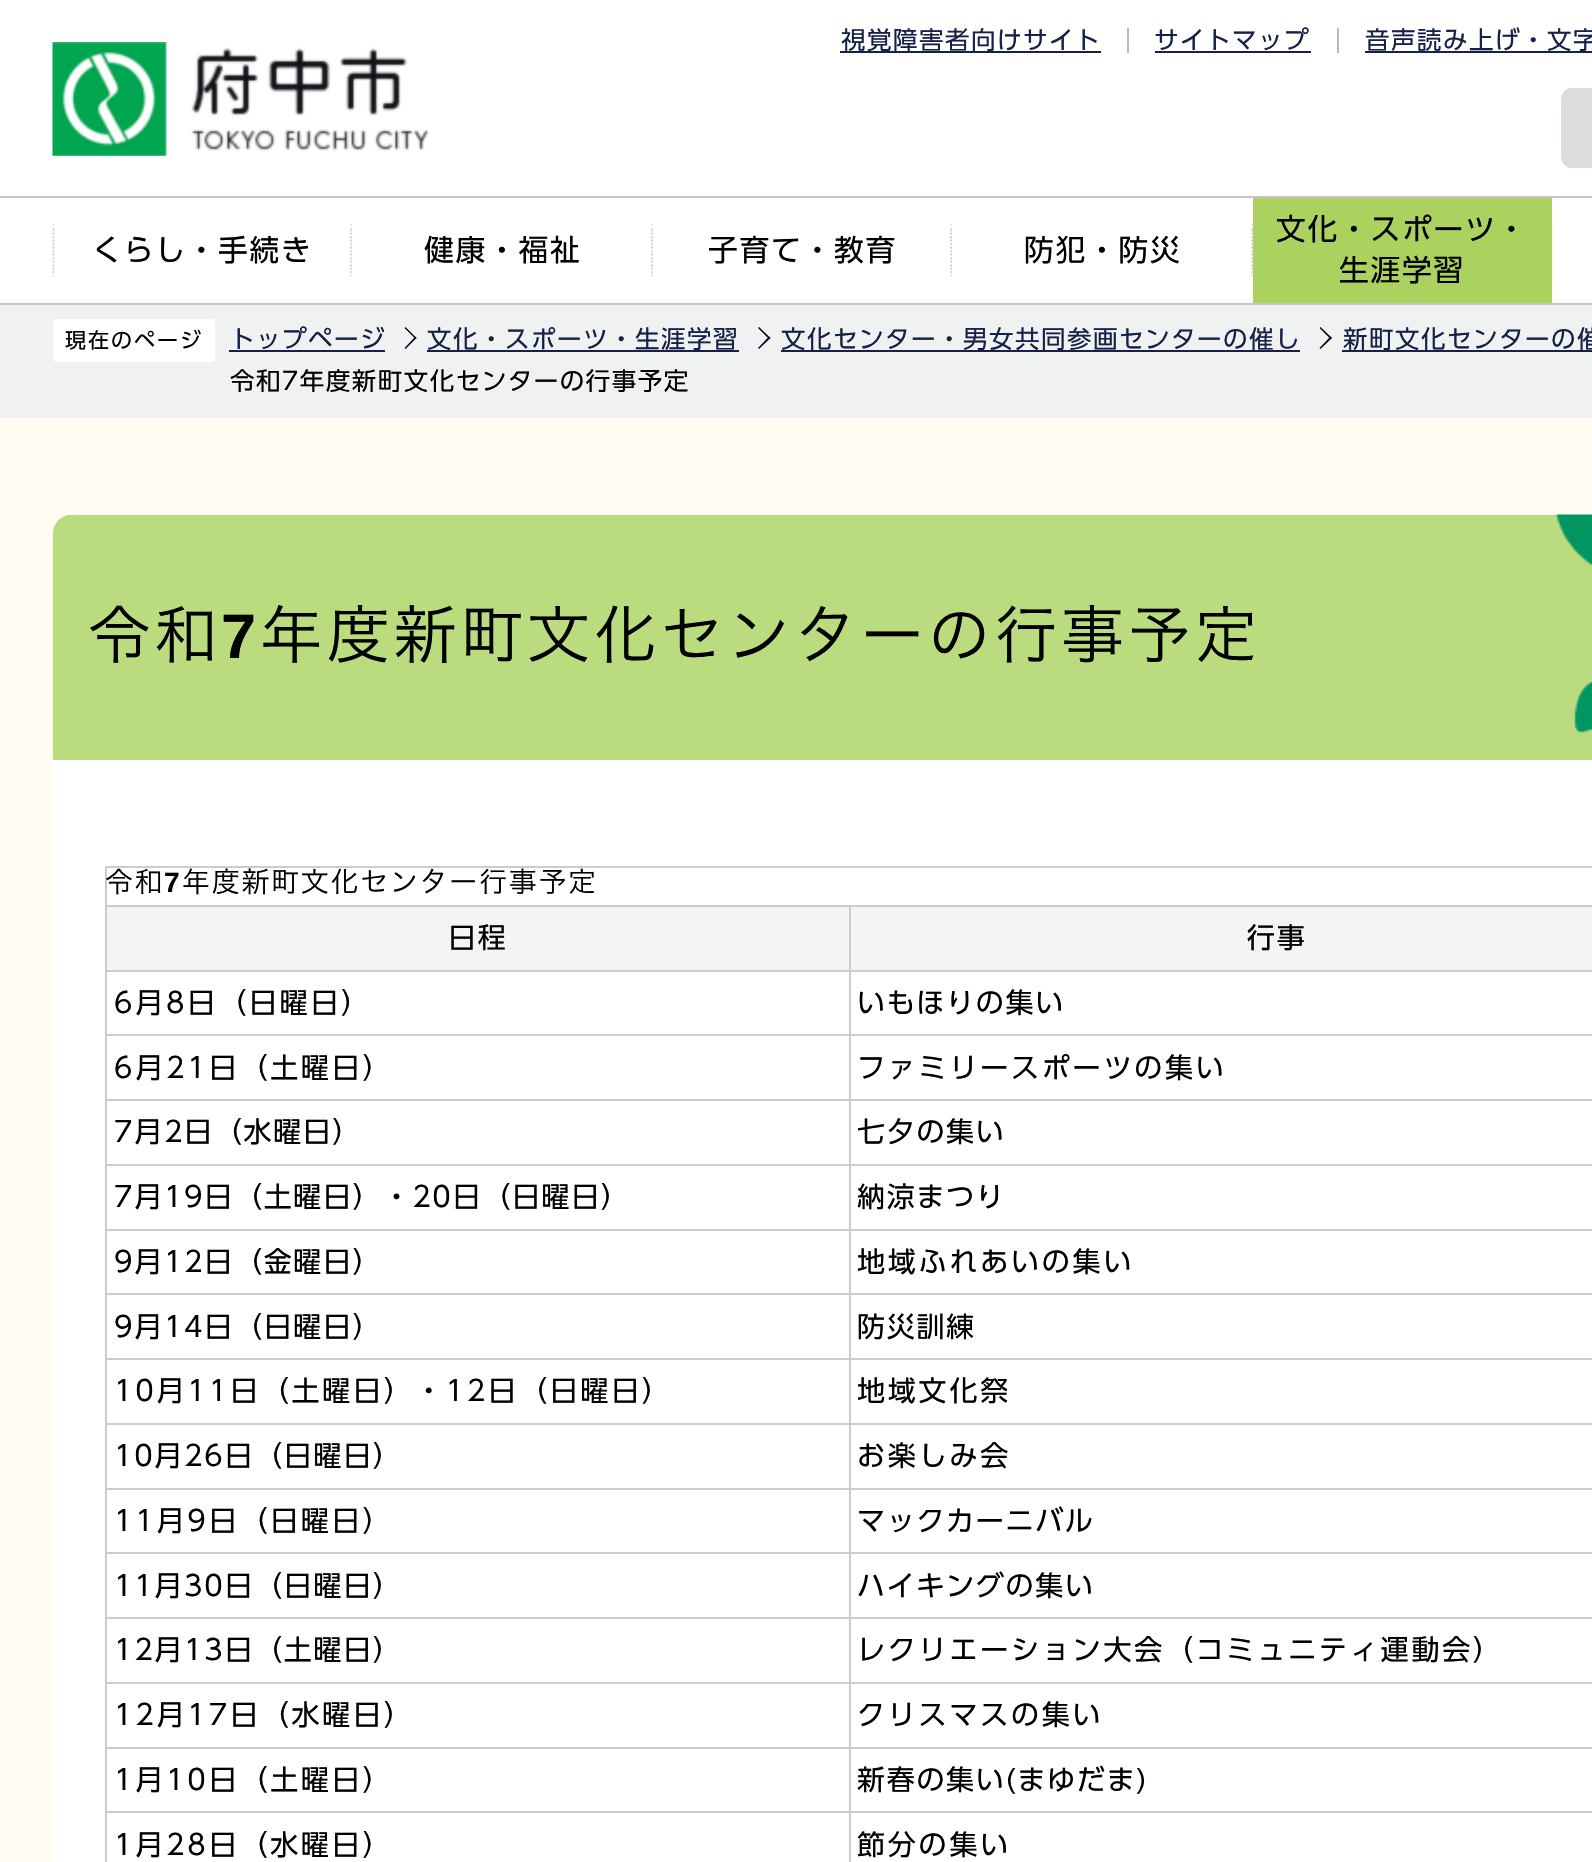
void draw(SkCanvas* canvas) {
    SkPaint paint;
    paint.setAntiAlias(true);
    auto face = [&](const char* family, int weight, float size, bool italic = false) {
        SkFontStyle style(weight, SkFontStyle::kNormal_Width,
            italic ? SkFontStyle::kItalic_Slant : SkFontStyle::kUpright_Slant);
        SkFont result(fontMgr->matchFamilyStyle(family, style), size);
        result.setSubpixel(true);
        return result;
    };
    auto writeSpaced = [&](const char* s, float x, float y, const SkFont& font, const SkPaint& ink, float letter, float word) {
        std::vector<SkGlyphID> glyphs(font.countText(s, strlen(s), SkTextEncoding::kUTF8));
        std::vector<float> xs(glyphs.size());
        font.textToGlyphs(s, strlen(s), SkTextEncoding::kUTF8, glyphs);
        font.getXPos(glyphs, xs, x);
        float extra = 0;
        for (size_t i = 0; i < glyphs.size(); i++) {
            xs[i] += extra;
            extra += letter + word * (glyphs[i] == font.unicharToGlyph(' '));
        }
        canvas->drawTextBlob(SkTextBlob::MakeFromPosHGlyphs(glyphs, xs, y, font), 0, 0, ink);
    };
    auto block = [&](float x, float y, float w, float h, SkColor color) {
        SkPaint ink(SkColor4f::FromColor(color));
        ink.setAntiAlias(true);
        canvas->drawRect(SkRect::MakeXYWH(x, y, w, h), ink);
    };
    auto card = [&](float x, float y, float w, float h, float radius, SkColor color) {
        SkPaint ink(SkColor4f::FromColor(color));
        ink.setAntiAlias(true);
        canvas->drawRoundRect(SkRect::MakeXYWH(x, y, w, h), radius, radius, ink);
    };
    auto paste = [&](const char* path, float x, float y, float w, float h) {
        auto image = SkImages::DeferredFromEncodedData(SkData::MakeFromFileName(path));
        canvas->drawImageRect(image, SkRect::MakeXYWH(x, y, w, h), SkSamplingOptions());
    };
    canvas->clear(SK_ColorWHITE);
    block(1127, 28, 2, 25, SkColorSetRGB(182, 188, 184));
    block(840, 51, 261, 2, SkColorSetRGB(21, 33, 72));
    auto kFont1 = face("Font", 400, 24.5f);
    paint.setColor(SkColorSetRGB(21, 33, 72));
    writeSpaced("視覚障害者向けサイト", 841, 49, kFont1, paint, 1.5f, 0);
    block(1337, 28, 2, 25, SkColorSetRGB(182, 188, 184));
    writeSpaced("サイトマップ", 1154, 49, kFont1, paint, 1.5f, 0);
    block(1155, 51, 156, 2, SkColorSetRGB(21, 33, 72));
    block(1365, 51, 227, 2, SkColorSetRGB(21, 33, 72));
    writeSpaced("音声読み上げ・文字", 1365, 49, kFont1, paint, 1.5f, 0);
    card(1561, 88, 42, 80, 11, SkColorSetRGB(219, 221, 219));
    paste("pic1.png", 52, 42, 377, 114);
    block(0, 196, 1592, 2, SkColorSetRGB(196, 196, 196));
    block(0, 303, 1592, 2, SkColorSetRGB(196, 196, 196));
    paste("pic2.png", 52, 224, 3, 53);
    paste("pic3.png", 350, 224, 2, 53);
    auto kFont2 = face("Font", 400, 29.75f);
    paint.setColor(SK_ColorBLACK);
    writeSpaced("くらし・手続き", 92, 261, kFont2, paint, 1.75f, 0);
    paste("pic3.png", 651, 224, 2, 53);
    writeSpaced("健康・福祉", 424, 261, kFont2, paint, 1.75f, 0);
    paste("pic4.png", 950, 224, 2, 53);
    writeSpaced("子育て・教育", 708, 261, kFont2, paint, 1.75f, 0);
    paste("pic4.png", 1251, 224, 2, 53);
    writeSpaced("防犯・防災", 1024, 261, kFont2, paint, 1.75f, 0);
    paste("pic5.png", 1552, 224, 1, 53);
    block(1253, 198, 299, 105, SkColorSetRGB(171, 210, 95));
    writeSpaced("文化・スポーツ・", 1276, 240, kFont2, paint, 1.75f, 0);
    writeSpaced("生涯学習", 1339, 281, kFont2, paint, 1.75f, 0);
    block(0, 418, 1592, 1444, SkColorSetRGB(255, 252, 242));
    block(0, 305, 1592, 113, SkColorSetRGB(240, 242, 241));
    card(53, 319, 162, 43, 4, SK_ColorWHITE);
    auto kFont3 = face("Font", 400, 21);
    writeSpaced("現在のページ", 65, 348, kFont3, paint, 2, 0);
    paint.setColor(SkColorSetRGB(21, 33, 72));
    writeSpaced("トップページ", 230, 348, kFont1, paint, 1.5f, 0);
    block(229, 350, 156, 2, SkColorSetRGB(21, 33, 72));
    paint.setColor(SkColorSetRGB(0, 2, 34));
    canvas->drawPath(SkPathBuilder().moveTo(405.5f, 327).lineTo(416.5f, 338).lineTo(415.5f, 339).lineTo(404.5f, 328).close().detach(), paint);
    canvas->drawPath(SkPathBuilder().moveTo(415.5f, 336.5f).lineTo(416.5f, 338).lineTo(405.5f, 349).lineTo(404.5f, 348).close().detach(), paint);
    block(427, 350, 312, 2, SkColorSetRGB(21, 33, 72));
    paint.setColor(SkColorSetRGB(21, 33, 72));
    writeSpaced("文化・スポーツ・生涯学習", 427, 348, kFont1, paint, 1.5f, 0);
    paint.setColor(SkColorSetRGB(0, 2, 34));
    canvas->drawPath(SkPathBuilder().moveTo(759, 327).lineTo(770.5f, 338).lineTo(769, 339).lineTo(758, 328).close().detach(), paint);
    canvas->drawPath(SkPathBuilder().moveTo(769, 336.5f).lineTo(770.5f, 338).lineTo(759, 349).lineTo(758, 348).close().detach(), paint);
    block(781, 350, 519, 2, SkColorSetRGB(21, 33, 72));
    paint.setColor(SkColorSetRGB(21, 33, 72));
    writeSpaced("文化センター・男女共同参画センターの催し", 781, 348, kFont1, paint, 1.5f, 0);
    paint.setColor(SkColorSetRGB(0, 2, 34));
    canvas->drawPath(SkPathBuilder().moveTo(1320.5f, 327).lineTo(1332, 338).lineTo(1330.5f, 339).lineTo(1319.5f, 328).close().detach(), paint);
    canvas->drawPath(SkPathBuilder().moveTo(1330.5f, 336.5f).lineTo(1332, 338).lineTo(1320.5f, 349).lineTo(1319.5f, 348).close().detach(), paint);
    block(1342, 350, 250, 2, SkColorSetRGB(21, 33, 72));
    paint.setColor(SkColorSetRGB(21, 33, 72));
    writeSpaced("新町文化センターの催", 1343, 348, kFont1, paint, 1.5f, 0);
    paint.setColor(SK_ColorBLACK);
    writeSpaced("令和7年度新町文化センターの行事予定", 230, 390, kFont1, paint, 1.5f, 0);
    card(53, 515, 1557, 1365, 18, SK_ColorWHITE);
    paint.setColor(SkColorSetRGB(187, 219, 127));
    canvas->drawPath(SkPathBuilder().moveTo(71, 515).lineTo(1592, 515).cubicTo(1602, 515, 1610, 523, 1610, 533).lineTo(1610, 760).lineTo(53, 760).lineTo(53, 533).cubicTo(53, 523, 61, 515, 71, 515).close().detach(), paint);
    paste("pic6.png", 1555, 514, 37, 220);
    auto kFont4 = face("Font", 300, 63);
    paint.setColor(SK_ColorBLACK);
    writeSpaced("令和", 88, 658, kFont4, paint, 3.75f, 0);
    auto kFont5 = face("Liberation Sans", 700, 63);
    writeSpaced("7", 221, 658, kFont5, paint, 3.75f, 0);
    writeSpaced("年度新町文化センターの行事予定", 260, 658, kFont4, paint, 3.75f, 0);
    block(105, 866, 1487, 2, SkColorSetRGB(204, 204, 204));
    block(105, 866, 2, 996, SkColorSetRGB(204, 204, 204));
    auto kFont6 = face("Font", 300, 28);
    writeSpaced("令和", 105, 892, kFont6, paint, 1.7f, 0);
    auto kFont7 = face("Liberation Sans", 700, 28);
    writeSpaced("7", 164, 892, kFont7, paint, 1.7f, 0);
    writeSpaced("年度新町文化センター行事予定", 182, 892, kFont6, paint, 1.7f, 0);
    block(107, 907, 742, 63, SkColorSetRGB(244, 244, 244));
    block(849, 905, 743, 2, SkColorSetRGB(204, 204, 204));
    block(849, 970, 743, 2, SkColorSetRGB(204, 204, 204));
    block(849, 1034, 743, 2, SkColorSetRGB(204, 204, 204));
    block(849, 1099, 743, 2, SkColorSetRGB(204, 204, 204));
    block(849, 1164, 743, 2, SkColorSetRGB(204, 204, 204));
    block(849, 1229, 743, 2, SkColorSetRGB(204, 204, 204));
    block(849, 1293, 743, 2, SkColorSetRGB(204, 204, 204));
    block(849, 1358, 743, 2, SkColorSetRGB(204, 204, 204));
    block(849, 1423, 743, 2, SkColorSetRGB(204, 204, 204));
    block(849, 1488, 743, 2, SkColorSetRGB(204, 204, 204));
    block(849, 1552, 743, 2, SkColorSetRGB(204, 204, 204));
    block(849, 1617, 743, 2, SkColorSetRGB(204, 204, 204));
    block(849, 1682, 743, 2, SkColorSetRGB(204, 204, 204));
    block(849, 1747, 743, 2, SkColorSetRGB(204, 204, 204));
    block(849, 1811, 743, 2, SkColorSetRGB(204, 204, 204));
    block(849, 1811, 2, 51, SkColorSetRGB(204, 204, 204));
    block(105, 1811, 746, 2, SkColorSetRGB(204, 204, 204));
    block(849, 1747, 2, 66, SkColorSetRGB(204, 204, 204));
    block(105, 1747, 746, 2, SkColorSetRGB(204, 204, 204));
    block(849, 1682, 2, 66, SkColorSetRGB(204, 204, 204));
    block(105, 1682, 746, 2, SkColorSetRGB(204, 204, 204));
    block(849, 1617, 2, 67, SkColorSetRGB(204, 204, 204));
    block(105, 1617, 746, 2, SkColorSetRGB(204, 204, 204));
    block(849, 1552, 2, 67, SkColorSetRGB(204, 204, 204));
    block(105, 1552, 746, 2, SkColorSetRGB(204, 204, 204));
    block(849, 1488, 2, 66, SkColorSetRGB(204, 204, 204));
    block(105, 1488, 746, 2, SkColorSetRGB(204, 204, 204));
    block(849, 1423, 2, 66, SkColorSetRGB(204, 204, 204));
    block(105, 1423, 746, 2, SkColorSetRGB(204, 204, 204));
    block(849, 1358, 2, 67, SkColorSetRGB(204, 204, 204));
    block(105, 1358, 746, 2, SkColorSetRGB(204, 204, 204));
    block(849, 1293, 2, 67, SkColorSetRGB(204, 204, 204));
    block(105, 1293, 746, 2, SkColorSetRGB(204, 204, 204));
    block(849, 1229, 2, 66, SkColorSetRGB(204, 204, 204));
    block(105, 1229, 746, 2, SkColorSetRGB(204, 204, 204));
    block(849, 1164, 2, 66, SkColorSetRGB(204, 204, 204));
    block(105, 1164, 746, 2, SkColorSetRGB(204, 204, 204));
    block(849, 1099, 2, 67, SkColorSetRGB(204, 204, 204));
    block(105, 1099, 746, 2, SkColorSetRGB(204, 204, 204));
    block(849, 1034, 2, 67, SkColorSetRGB(204, 204, 204));
    block(105, 1034, 746, 2, SkColorSetRGB(204, 204, 204));
    block(849, 970, 2, 66, SkColorSetRGB(204, 204, 204));
    block(105, 970, 746, 2, SkColorSetRGB(204, 204, 204));
    block(849, 905, 2, 66, SkColorSetRGB(204, 204, 204));
    block(105, 905, 746, 2, SkColorSetRGB(204, 204, 204));
    auto kFont8 = face("Font", 400, 28);
    writeSpaced("日程", 448, 948, kFont8, paint, 1.7f, 0);
    block(851, 907, 741, 63, SkColorSetRGB(244, 244, 244));
    writeSpaced("行事", 1247, 948, kFont8, paint, 1.7f, 0);
    writeSpaced("6月8日（日曜日）", 114, 1013, kFont8, paint, 2.8f, 0);
    writeSpaced("いもほりの集い", 857, 1013, kFont8, paint, 1.7f, 0);
    writeSpaced("6月21日（土曜日）", 114, 1078, kFont8, paint, 2.8f, 0);
    writeSpaced("ファミリースポーツの集い", 857, 1078, kFont8, paint, 2.8f, 0);
    writeSpaced("7月2日（水曜日）", 114, 1142, kFont8, paint, 1.7f, 0);
    writeSpaced("七夕の集い", 857, 1142, kFont8, paint, 1.7f, 0);
    writeSpaced("7月19日（土曜日）・20日（日曜日）", 114, 1207, kFont8, paint, 1.7f, 0);
    writeSpaced("納涼まつり", 857, 1207, kFont8, paint, 1.7f, 0);
    writeSpaced("9月12日（金曜日）", 114, 1272, kFont8, paint, 1.7f, 0);
    writeSpaced("地域ふれあいの集い", 857, 1272, kFont8, paint, 2.8f, 0);
    writeSpaced("9月14日（日曜日）", 114, 1337, kFont8, paint, 1.7f, 0);
    writeSpaced("防災訓練", 857, 1337, kFont8, paint, 1.7f, 0);
    writeSpaced("10月11日（土曜日）・12日（日曜日）", 114, 1401, kFont8, paint, 2.8f, 0);
    writeSpaced("地域文化祭", 857, 1401, kFont8, paint, 2.8f, 0);
    writeSpaced("10月26日（日曜日）", 114, 1466, kFont8, paint, 1.7f, 0);
    writeSpaced("お楽しみ会", 857, 1466, kFont8, paint, 2.8f, 0);
    writeSpaced("11月9日（日曜日）", 114, 1531, kFont8, paint, 2.8f, 0);
    writeSpaced("マックカーニバル", 857, 1531, kFont8, paint, 1.7f, 0);
    writeSpaced("11月30日（日曜日）", 114, 1596, kFont8, paint, 1.7f, 0);
    writeSpaced("ハイキングの集い", 857, 1596, kFont8, paint, 1.7f, 0);
    writeSpaced("12月13日（土曜日）", 114, 1660, kFont8, paint, 1.7f, 0);
    writeSpaced("レクリエーション大会（コミュニティ運動会）", 857, 1660, kFont8, paint, 2.8f, 0);
    writeSpaced("12月17日（水曜日）", 114, 1725, kFont8, paint, 2.8f, 0);
    writeSpaced("クリスマスの集い", 857, 1725, kFont8, paint, 2.8f, 0);
    writeSpaced("1月10日（土曜日）", 114, 1790, kFont8, paint, 2.8f, 0);
    writeSpaced("新春の集い(まゆだま)", 857, 1790, kFont8, paint, 1.7f, 0);
    writeSpaced("1月28日（水曜日）", 114, 1855, kFont8, paint, 2.8f, 0);
    writeSpaced("節分の集い", 857, 1855, kFont8, paint, 2.8f, 0);
}
